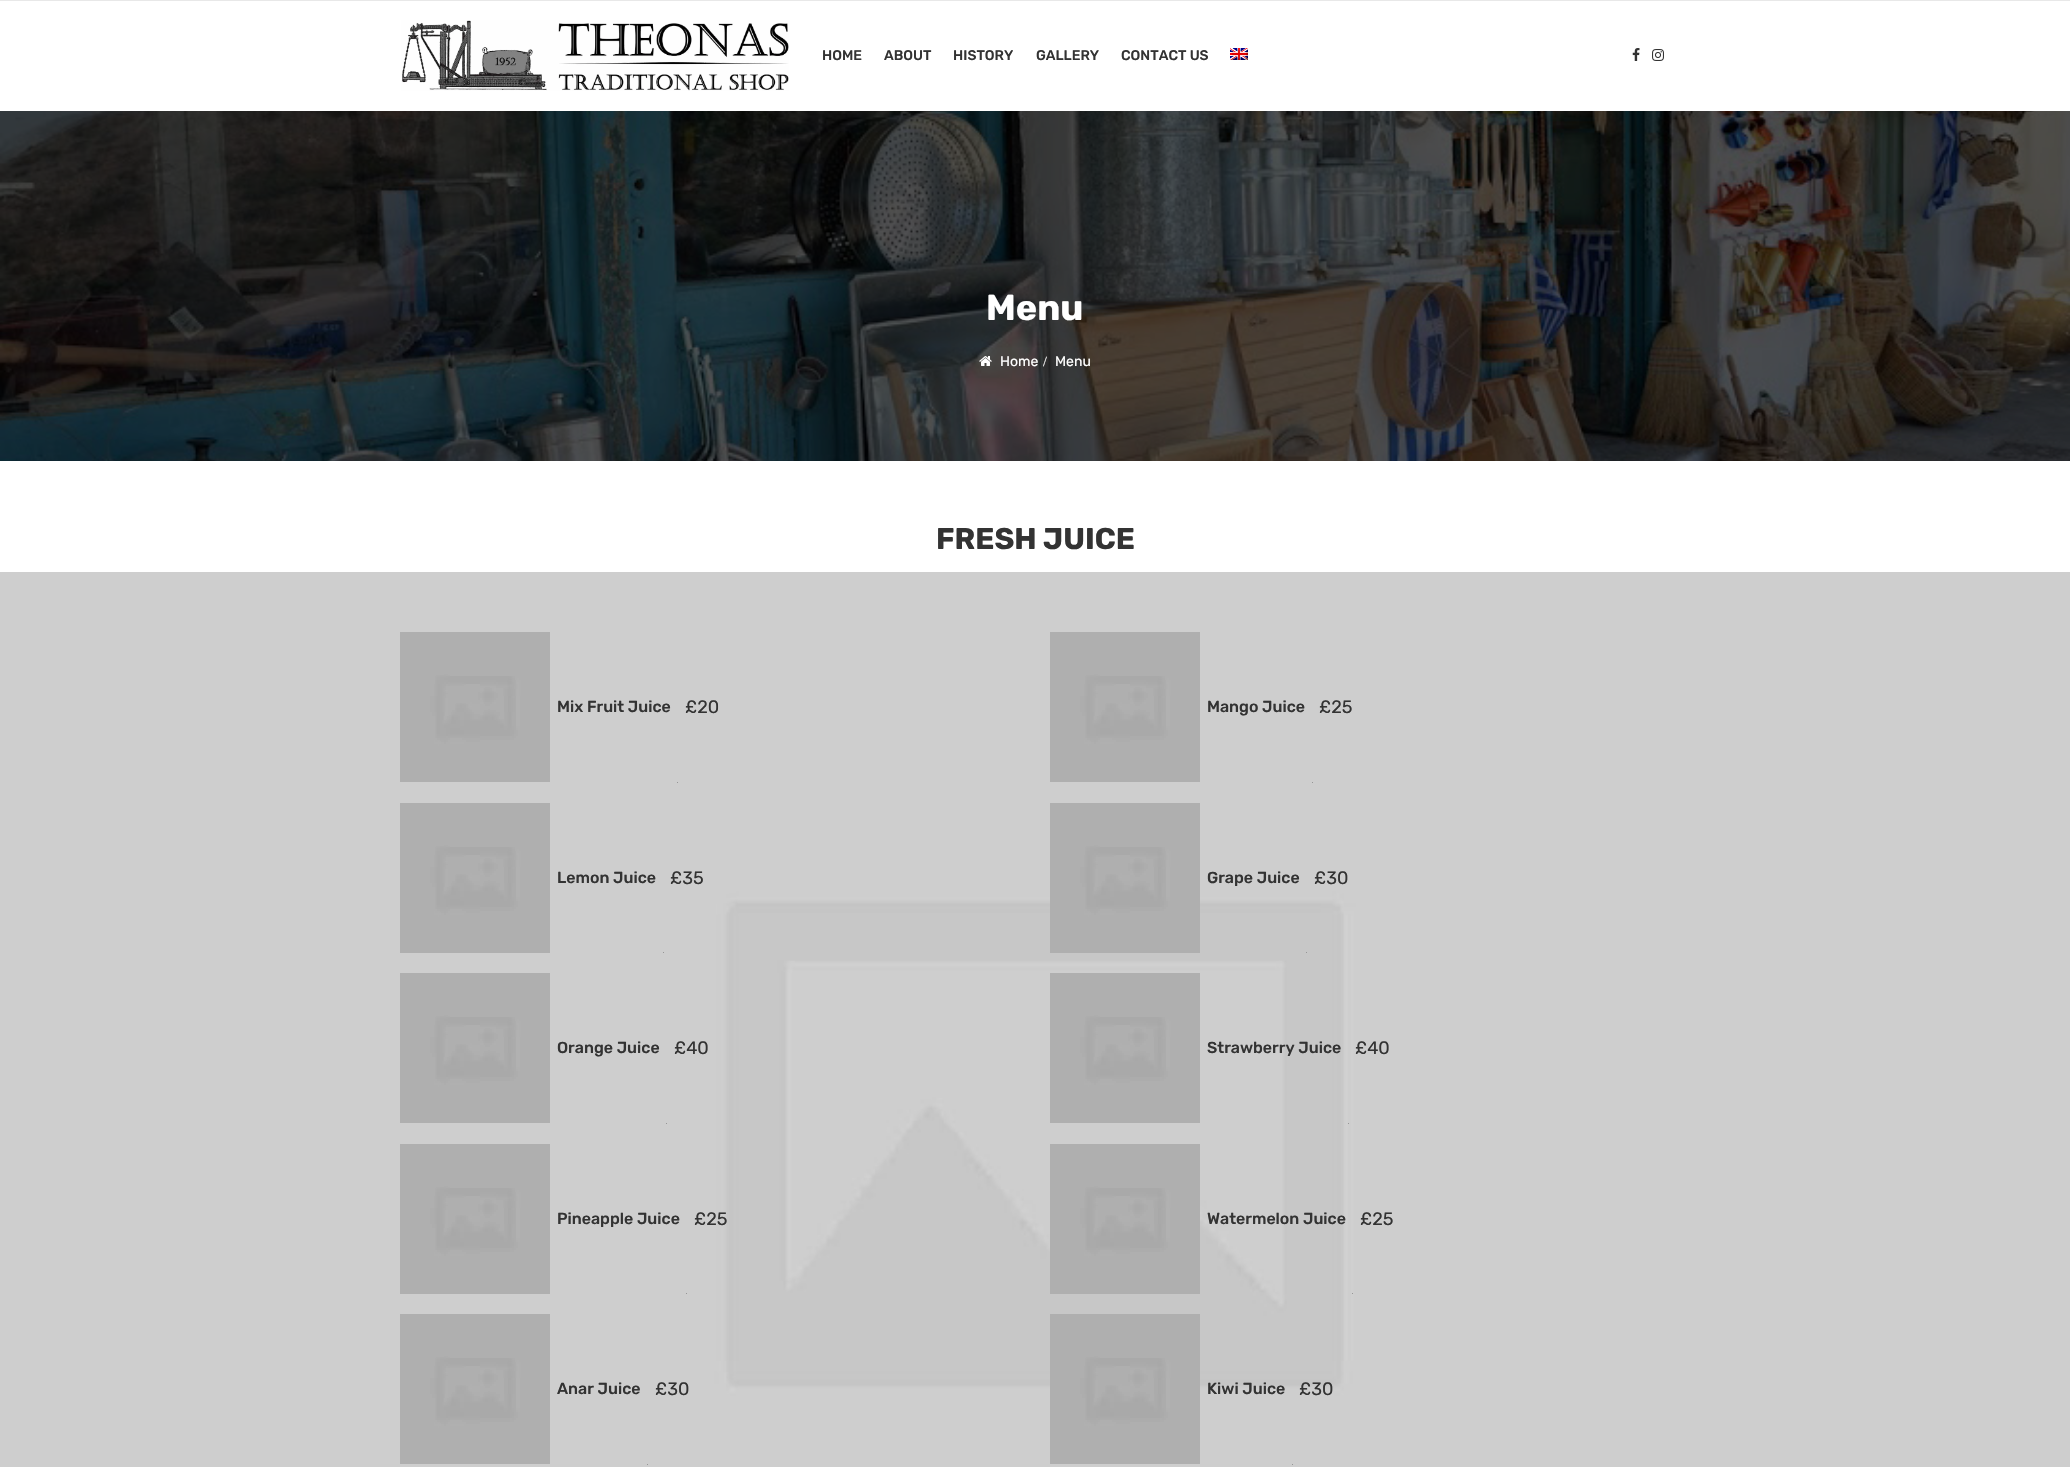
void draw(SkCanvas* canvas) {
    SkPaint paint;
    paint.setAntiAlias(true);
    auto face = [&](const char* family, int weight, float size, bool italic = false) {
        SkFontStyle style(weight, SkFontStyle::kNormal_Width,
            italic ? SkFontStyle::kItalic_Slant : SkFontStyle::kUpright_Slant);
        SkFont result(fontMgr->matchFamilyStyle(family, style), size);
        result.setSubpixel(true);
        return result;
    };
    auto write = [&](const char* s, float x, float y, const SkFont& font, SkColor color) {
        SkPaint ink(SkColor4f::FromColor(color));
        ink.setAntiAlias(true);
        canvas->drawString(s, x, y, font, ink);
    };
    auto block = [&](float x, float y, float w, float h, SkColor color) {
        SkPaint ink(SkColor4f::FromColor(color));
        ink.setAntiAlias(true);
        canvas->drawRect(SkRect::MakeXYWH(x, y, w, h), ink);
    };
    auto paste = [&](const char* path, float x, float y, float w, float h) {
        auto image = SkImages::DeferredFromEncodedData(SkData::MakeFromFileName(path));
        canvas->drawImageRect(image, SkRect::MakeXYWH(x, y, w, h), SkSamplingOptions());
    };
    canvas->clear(SK_ColorWHITE);
    block(0, 0, 2070, 1, SkColorSetRGB(232, 232, 232));
    paste("pic1.png", 401, 20, 388, 71);
    auto kFont1 = face("Rubik", 500, 14);
    write("HOME", 822, 60, kFont1, SkColorSetRGB(51, 51, 51));
    write("ABOUT", 884, 60, kFont1, SkColorSetRGB(51, 51, 51));
    write("HISTORY", 953, 60, kFont1, SkColorSetRGB(51, 51, 51));
    write("GALLERY", 1036, 60, kFont1, SkColorSetRGB(51, 51, 51));
    write("CONTACT US", 1121, 60, kFont1, SkColorSetRGB(51, 51, 51));
    paste("pic2.png", 1230, 48, 18, 12);
    paste("pic3.png", 1632, 48, 8, 13);
    paste("pic4.png", 1652, 49, 12, 12);
    paste("pic5.png", 0, 111, 2070, 350);
    auto kFont2 = face("Rubik", 700, 36);
    write("Menu", 986, 320, kFont2, SK_ColorWHITE);
    paste("pic6.png", 979, 356, 13, 10);
    auto kFont3 = face("Rubik", 400, 14);
    write("Home", 1000, 366, kFont3, SK_ColorWHITE);
    auto kFont4 = face("Liberation Serif", 400, 14);
    write("/", 1043, 366, kFont4, SK_ColorWHITE);
    write("Menu", 1055, 366, kFont3, SK_ColorWHITE);
    auto kFont5 = face("Rubik", 700, 30);
    write("FRESH JUICE", 936, 549, kFont5, SkColorSetRGB(51, 51, 51));
    paste("pic7.png", 0, 572, 2070, 895);
    paste("pic8.png", 400, 632, 150, 150);
    auto kFont6 = face("Rubik", 500, 16);
    write("Mix Fruit Juice", 557, 712, kFont6, SkColorSetRGB(51, 51, 51));
    auto kFont7 = face("Rubik", 400, 18);
    write("£20", 685, 713, kFont7, SkColorSetRGB(51, 51, 51));
    block(677, 782, 1, 1, SkColorSetRGB(150, 150, 150));
    paste("pic8.png", 400, 803, 150, 150);
    write("Lemon Juice", 557, 883, kFont6, SkColorSetRGB(51, 51, 51));
    write("£35", 670, 884, kFont7, SkColorSetRGB(51, 51, 51));
    block(663, 952, 1, 1, SkColorSetRGB(150, 150, 150));
    paste("pic8.png", 400, 973, 150, 150);
    write("Orange Juice", 557, 1053, kFont6, SkColorSetRGB(51, 51, 51));
    write("£40", 674, 1054, kFont7, SkColorSetRGB(51, 51, 51));
    block(666, 1123, 1, 1, SkColorSetRGB(150, 150, 150));
    paste("pic8.png", 400, 1144, 150, 150);
    write("Pineapple Juice", 557, 1224, kFont6, SkColorSetRGB(51, 51, 51));
    write("£25", 694, 1225, kFont7, SkColorSetRGB(51, 51, 51));
    block(686, 1293, 1, 1, SkColorSetRGB(150, 150, 150));
    paste("pic8.png", 400, 1314, 150, 150);
    write("Anar Juice", 557, 1394, kFont6, SkColorSetRGB(51, 51, 51));
    write("£30", 655, 1395, kFont7, SkColorSetRGB(51, 51, 51));
    block(647, 1464, 1, 1, SkColorSetRGB(150, 150, 150));
    paste("pic8.png", 1050, 632, 150, 150);
    write("Mango Juice", 1207, 712, kFont6, SkColorSetRGB(51, 51, 51));
    write("£25", 1319, 713, kFont7, SkColorSetRGB(51, 51, 51));
    block(1312, 782, 1, 1, SkColorSetRGB(150, 150, 150));
    paste("pic8.png", 1050, 803, 150, 150);
    write("Grape Juice", 1207, 883, kFont6, SkColorSetRGB(51, 51, 51));
    write("£30", 1314, 884, kFont7, SkColorSetRGB(51, 51, 51));
    block(1306, 952, 1, 1, SkColorSetRGB(150, 150, 150));
    paste("pic8.png", 1050, 973, 150, 150);
    write("Strawberry Juice", 1207, 1053, kFont6, SkColorSetRGB(51, 51, 51));
    write("£40", 1355, 1054, kFont7, SkColorSetRGB(51, 51, 51));
    block(1348, 1123, 1, 1, SkColorSetRGB(150, 150, 150));
    paste("pic8.png", 1050, 1144, 150, 150);
    write("Watermelon Juice", 1207, 1224, kFont6, SkColorSetRGB(51, 51, 51));
    write("£25", 1360, 1225, kFont7, SkColorSetRGB(51, 51, 51));
    block(1352, 1293, 1, 1, SkColorSetRGB(150, 150, 150));
    paste("pic8.png", 1050, 1314, 150, 150);
    write("Kiwi Juice", 1207, 1394, kFont6, SkColorSetRGB(51, 51, 51));
    write("£30", 1299, 1395, kFont7, SkColorSetRGB(51, 51, 51));
    block(1292, 1464, 1, 1, SkColorSetRGB(150, 150, 150));
}
